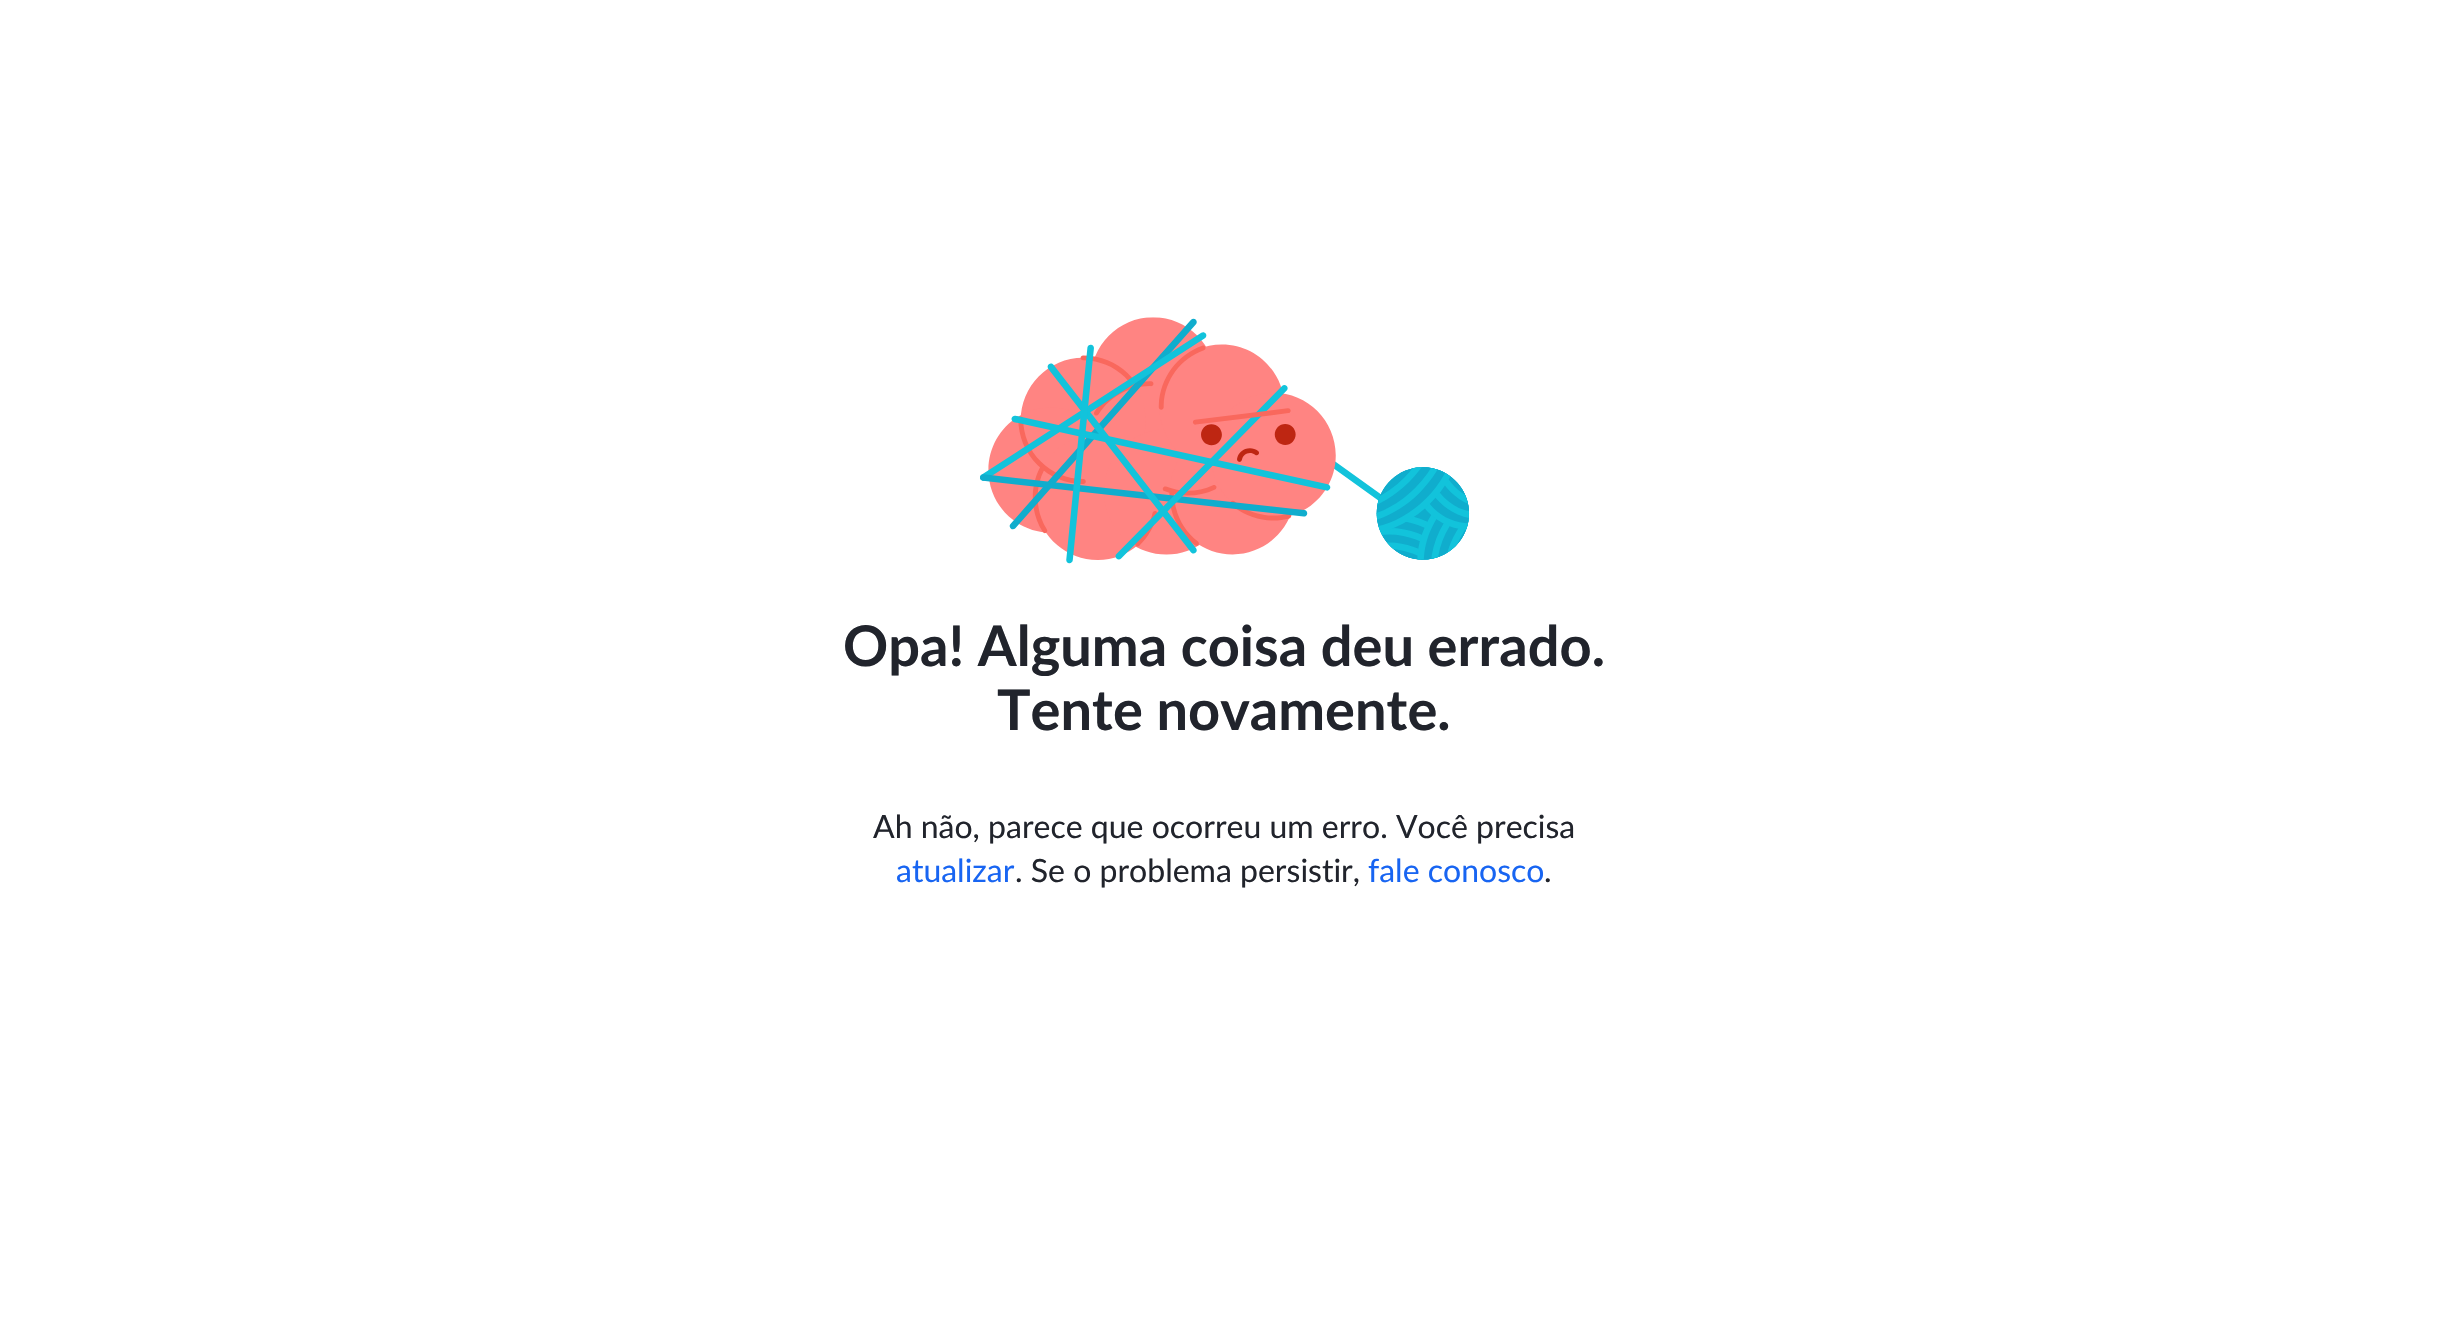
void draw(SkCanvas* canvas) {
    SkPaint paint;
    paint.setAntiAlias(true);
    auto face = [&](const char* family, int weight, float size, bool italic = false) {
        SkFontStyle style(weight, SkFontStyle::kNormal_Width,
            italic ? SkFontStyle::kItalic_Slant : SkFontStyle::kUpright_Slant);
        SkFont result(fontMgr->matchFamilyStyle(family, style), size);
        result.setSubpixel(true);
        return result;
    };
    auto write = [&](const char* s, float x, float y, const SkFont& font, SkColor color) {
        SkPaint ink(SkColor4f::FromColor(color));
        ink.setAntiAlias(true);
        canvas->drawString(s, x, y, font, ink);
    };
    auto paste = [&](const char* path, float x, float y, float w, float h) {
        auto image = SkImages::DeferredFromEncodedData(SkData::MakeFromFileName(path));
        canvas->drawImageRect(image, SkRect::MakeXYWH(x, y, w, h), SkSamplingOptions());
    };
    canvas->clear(SK_ColorWHITE);
    paste("pic1.png", 980, 317, 490, 247);
    auto kFont1 = face("Lato", 700, 56);
    write("Opa! Alguma coisa deu errado.", 843, 666, kFont1, SkColorSetRGB(33, 36, 44));
    write("Tente novamente.", 997, 730, kFont1, SkColorSetRGB(33, 36, 44));
    auto kFont2 = face("Lato", 400, 32);
    write("Ah não, parece que ocorreu um erro. Você precisa", 873, 838, kFont2, SkColorSetRGB(33, 36, 44));
    write("atualizar", 896, 882, kFont2, SkColorSetRGB(24, 101, 242));
    write(". Se o problema persistir,", 1015, 882, kFont2, SkColorSetRGB(33, 36, 44));
    write("fale conosco", 1368, 882, kFont2, SkColorSetRGB(24, 101, 242));
    write(".", 1544, 882, kFont2, SkColorSetRGB(33, 36, 44));
}
